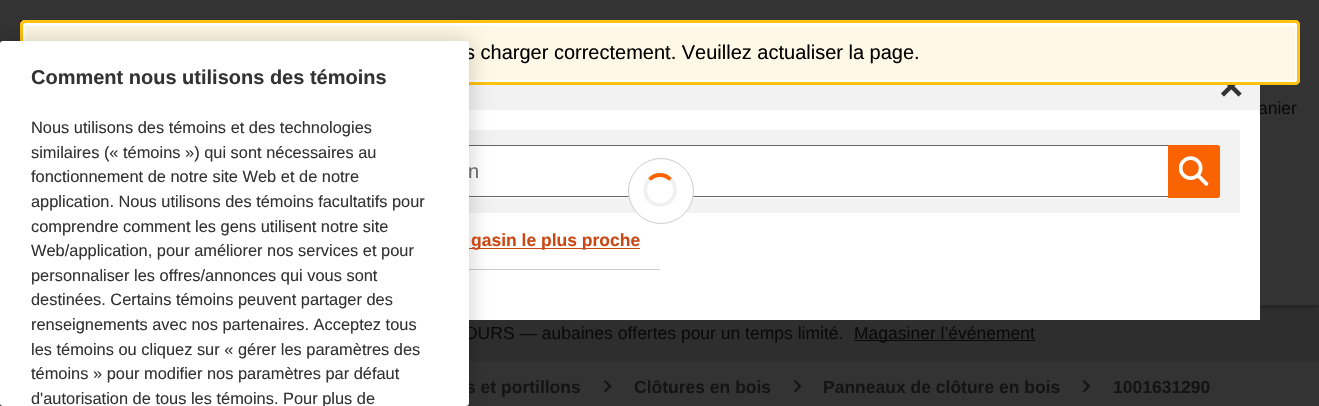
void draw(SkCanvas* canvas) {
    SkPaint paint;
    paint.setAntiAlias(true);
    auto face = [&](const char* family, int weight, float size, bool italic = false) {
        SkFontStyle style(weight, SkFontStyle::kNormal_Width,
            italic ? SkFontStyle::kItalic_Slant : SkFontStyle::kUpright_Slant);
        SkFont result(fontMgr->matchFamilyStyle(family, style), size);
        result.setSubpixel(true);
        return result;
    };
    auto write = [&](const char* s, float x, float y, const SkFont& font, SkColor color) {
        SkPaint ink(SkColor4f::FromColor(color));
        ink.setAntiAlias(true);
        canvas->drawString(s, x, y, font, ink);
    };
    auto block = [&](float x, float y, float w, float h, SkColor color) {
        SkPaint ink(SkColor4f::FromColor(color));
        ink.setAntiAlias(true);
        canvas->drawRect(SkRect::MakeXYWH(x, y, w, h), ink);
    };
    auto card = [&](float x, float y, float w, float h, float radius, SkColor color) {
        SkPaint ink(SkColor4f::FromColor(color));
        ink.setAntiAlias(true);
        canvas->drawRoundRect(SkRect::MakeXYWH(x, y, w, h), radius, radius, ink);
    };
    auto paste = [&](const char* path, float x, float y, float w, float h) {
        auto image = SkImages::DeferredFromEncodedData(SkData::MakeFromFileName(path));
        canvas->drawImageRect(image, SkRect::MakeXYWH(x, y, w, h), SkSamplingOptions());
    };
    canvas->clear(SkColorSetRGB(51, 51, 51));
    paste("pic1.png", 20, 20, 5, 5);
    card(20, 20, 1280, 65, 5, SkColorSetRGB(255, 248, 230));
    paint.setStyle(SkPaint::kStroke_Style);
    paint.setStrokeWidth(3);
    paint.setColor(SK_ColorWHITE);
    canvas->drawRoundRect(SkRect::MakeXYWH(24.5f, 24.5f, 1272, 57), 1, 1, paint);
    paint.setColor(SkColorSetRGB(255, 194, 14));
    canvas->drawRoundRect(SkRect::MakeXYWH(21.5f, 21.5f, 1277, 62), 3.5f, 3.5f, paint);
    block(469, 305, 850, 56, SkColorSetRGB(46, 46, 46));
    auto kFont1 = face("Liberation Sans", 400, 17.5f);
    write("anier", 1258, 114, kFont1, SkColorSetRGB(10, 10, 10));
    block(469, 85, 791, 25, SkColorSetRGB(242, 242, 242));
    canvas->save();
    canvas->clipRect(SkRect::MakeXYWH(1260, 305, 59, 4));
    paint.setStyle(SkPaint::kFill_Style);
    paint.setColor(SkColorSetARGB(51, 0, 0, 0));
    paint.setMaskFilter(SkMaskFilter::MakeBlur(kNormal_SkBlurStyle, 1));
    canvas->drawRect(SkRect::MakeXYWH(3, 303, 1315, 5), paint);
    paint.setMaskFilter(nullptr);
    canvas->restore();
    block(469, 110, 791, 210, SK_ColorWHITE);
    block(469, 130, 771, 83, SkColorSetRGB(242, 242, 242));
    block(469, 146, 699, 52, SK_ColorWHITE);
    block(469, 145, 699, 1, SkColorSetRGB(102, 102, 102));
    block(469, 196, 699, 1, SkColorSetRGB(102, 102, 102));
    block(469, 269, 191, 1, SkColorSetRGB(204, 204, 204));
    block(469, 248, 171, 1, SkColorSetRGB(203, 72, 20));
    paint.setMaskFilter(SkMaskFilter::MakeBlur(kNormal_SkBlurStyle, 11));
    canvas->drawRoundRect(SkRect::MakeXYWH(0, 41, 469, 365), 3, 3, paint);
    paint.setMaskFilter(nullptr);
    auto kFont2 = face("Liberation Sans", 400, 20);
    write("s charger correctement. Veuillez actualiser la page.", 465, 59, kFont2, SK_ColorBLACK);
    write("OURS — aubaines offertes pour un temps limité.", 464, 339, kFont1, SkColorSetRGB(10, 10, 10));
    auto kFont3 = face("Liberation Sans", 700, 17.5f);
    write("s et portillons", 466, 393, kFont3, SkColorSetRGB(20, 20, 20));
    card(0, 41, 469, 365, 3, SK_ColorWHITE);
    auto kFont4 = face("Liberation Sans", 700, 20);
    write("Comment nous utilisons des témoins", 31, 84, kFont4, SkColorSetRGB(51, 51, 51));
    auto kFont5 = face("Liberation Sans", 400, 16.4f);
    write("Nous utilisons des témoins et des technologies", 31, 133, kFont5, SkColorSetRGB(51, 51, 51));
    write("similaires (« témoins ») qui sont nécessaires au", 31, 158, kFont5, SkColorSetRGB(51, 51, 51));
    write("fonctionnement de notre site Web et de notre", 31, 182, kFont5, SkColorSetRGB(51, 51, 51));
    write("application. Nous utilisons des témoins facultatifs pour", 31, 207, kFont5, SkColorSetRGB(51, 51, 51));
    write("comprendre comment les gens utilisent notre site", 31, 232, kFont5, SkColorSetRGB(51, 51, 51));
    write("Web/application, pour améliorer nos services et pour", 31, 256, kFont5, SkColorSetRGB(51, 51, 51));
    write("personnaliser les offres/annonces qui vous sont", 31, 281, kFont5, SkColorSetRGB(51, 51, 51));
    write("destinées. Certains témoins peuvent partager des", 31, 305, kFont5, SkColorSetRGB(51, 51, 51));
    write("renseignements avec nos partenaires. Acceptez tous", 31, 330, kFont5, SkColorSetRGB(51, 51, 51));
    write("les témoins ou cliquez sur « gérer les paramètres des", 31, 355, kFont5, SkColorSetRGB(51, 51, 51));
    write("témoins » pour modifier nos paramètres par défaut", 31, 379, kFont5, SkColorSetRGB(51, 51, 51));
    write("d'autorisation de tous les témoins. Pour plus de", 31, 404, kFont5, SkColorSetRGB(51, 51, 51));
    block(854, 340, 181, 1, SkColorSetRGB(10, 10, 10));
    write("Magasiner l’événement", 854, 339, kFont1, SkColorSetRGB(10, 10, 10));
    paste("pic2.png", 1220, 85, 22, 12);
    write("n", 468, 178, kFont2, SkColorSetRGB(102, 102, 102));
    paint.setColor(SkColorSetRGB(249, 99, 2));
    canvas->drawPath(SkPathBuilder().moveTo(1168, 145).lineTo(1217.5f, 145).cubicTo(1219, 145, 1220, 146, 1220, 147.5f).lineTo(1220, 195.5f).cubicTo(1220, 197, 1219, 198, 1217.5f, 198).lineTo(1168, 198).close().detach(), paint);
    paste("pic3.png", 1179, 156, 30, 30);
    paint.setColor(SK_ColorWHITE);
    canvas->drawCircle(661, 191, 32.5f, paint);
    paint.setStyle(SkPaint::kStroke_Style);
    paint.setStrokeWidth(1);
    paint.setColor(SkColorSetRGB(204, 204, 204));
    canvas->drawCircle(661, 191, 32.5f, paint);
    paint.setStrokeWidth(3.8f);
    paint.setColor(SkColorSetRGB(249, 99, 2));
    canvas->drawPath(SkPathBuilder().moveTo(649.5f, 179.5f).cubicTo(655, 173.5f, 665, 173.5f, 670.5f, 179.5f).detach(), paint);
    paint.setColor(SkColorSetARGB(77, 204, 204, 204));
    canvas->drawPath(SkPathBuilder().moveTo(670.5f, 179.5f).cubicTo(673.5f, 182, 675, 186, 675, 190).cubicTo(675, 208, 649, 210.5f, 645.5f, 193).cubicTo(644.5f, 188, 646, 183, 649.5f, 179.5f).detach(), paint);
    write("gasin le plus proche", 471, 246, kFont3, SkColorSetRGB(203, 72, 20));
    paste("pic4.png", 604, 380, 8, 13);
    write("Clôtures en bois", 634, 393, kFont3, SkColorSetRGB(20, 20, 20));
    paste("pic4.png", 794, 380, 8, 13);
    write("Panneaux de clôture en bois", 823, 393, kFont3, SkColorSetRGB(20, 20, 20));
    paste("pic5.png", 1082, 380, 9, 13);
    write("1001631290", 1113, 393, kFont3, SkColorSetRGB(20, 20, 20));
}
